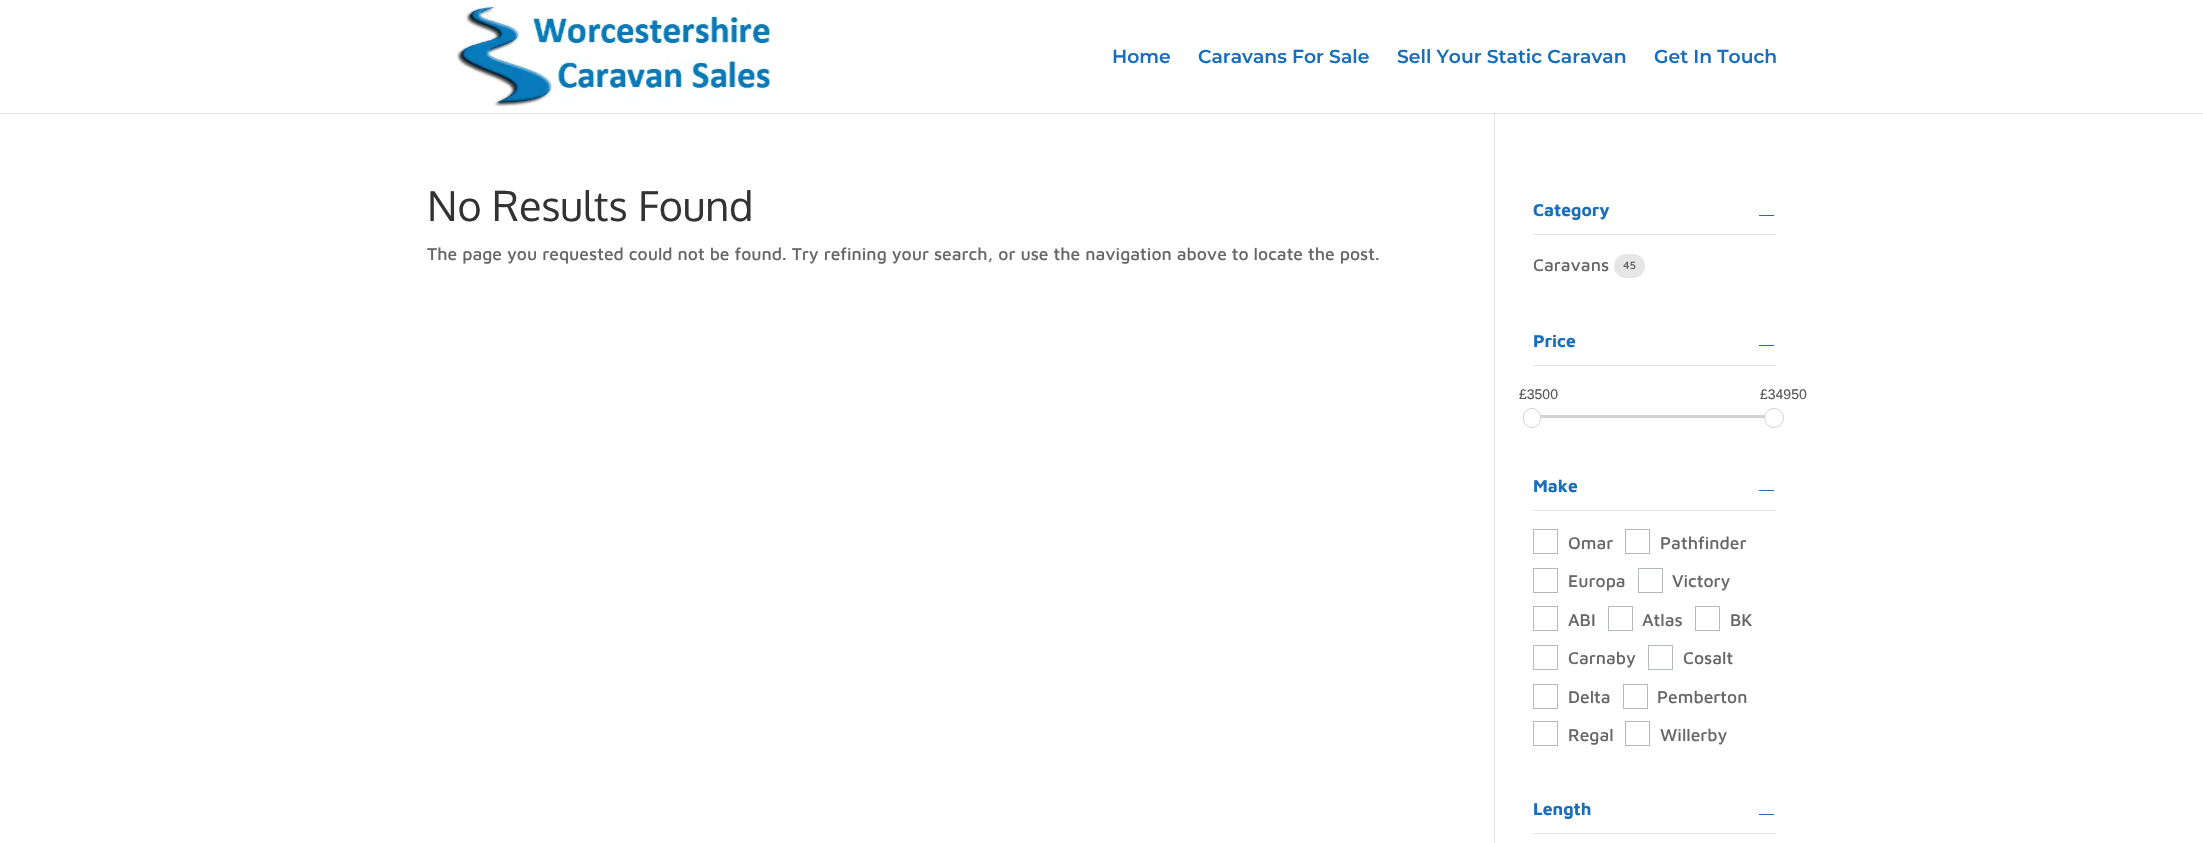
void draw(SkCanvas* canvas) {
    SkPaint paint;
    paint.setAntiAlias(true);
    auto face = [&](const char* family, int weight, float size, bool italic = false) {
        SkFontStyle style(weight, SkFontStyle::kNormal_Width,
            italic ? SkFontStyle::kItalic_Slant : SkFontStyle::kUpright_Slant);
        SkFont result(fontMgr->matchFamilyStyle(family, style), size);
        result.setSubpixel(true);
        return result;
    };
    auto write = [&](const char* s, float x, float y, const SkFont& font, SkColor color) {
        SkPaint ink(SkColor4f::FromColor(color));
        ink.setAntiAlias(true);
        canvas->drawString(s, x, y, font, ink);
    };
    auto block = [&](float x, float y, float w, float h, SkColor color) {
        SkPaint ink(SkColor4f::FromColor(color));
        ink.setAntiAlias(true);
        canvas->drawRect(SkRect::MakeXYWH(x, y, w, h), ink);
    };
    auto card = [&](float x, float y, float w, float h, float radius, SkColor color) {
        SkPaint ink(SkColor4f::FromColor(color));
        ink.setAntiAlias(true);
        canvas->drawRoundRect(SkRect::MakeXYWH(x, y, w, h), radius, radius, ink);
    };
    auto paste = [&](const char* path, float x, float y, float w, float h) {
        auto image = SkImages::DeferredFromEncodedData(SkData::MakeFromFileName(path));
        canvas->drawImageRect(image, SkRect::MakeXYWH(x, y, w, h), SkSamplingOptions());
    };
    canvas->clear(SK_ColorWHITE);
    block(1494, 113, 1, 730, SkColorSetRGB(226, 226, 226));
    paint.setColor(SkColorSetARGB(26, 0, 0, 0));
    canvas->drawPath(SkPathBuilder().moveTo(0, 112).lineTo(0, 114).lineTo(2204, 114).lineTo(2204, 1).lineTo(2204, 112).close().detach(), paint);
    block(0, 112, 2203, 1, SK_ColorWHITE);
    paste("pic1.png", 456, 5, 315, 102);
    auto kFont1 = face("Montserrat", 600, 18.75f);
    write("Home", 1112, 63, kFont1, SkColorSetRGB(24, 110, 187));
    write("Caravans For Sale", 1198, 63, kFont1, SkColorSetRGB(24, 110, 187));
    write("Sell Your Static Caravan", 1397, 63, kFont1, SkColorSetRGB(24, 110, 187));
    write("Get In Touch", 1654, 63, kFont1, SkColorSetRGB(24, 110, 187));
    auto kFont2 = face("Oxygen", 400, 41.25f);
    write("No Results Found", 427, 221, kFont2, SkColorSetRGB(51, 51, 51));
    auto kFont3 = face("Maven Pro", 500, 17.5f);
    write("The page you requested could not be found. Try refining your search, or use the navigation above to locate the post.", 427, 260, kFont3, SkColorSetRGB(102, 102, 102));
    block(1533, 234, 243, 1, SkColorSetRGB(230, 230, 230));
    auto kFont4 = face("Maven Pro", 700, 17.5f);
    write("Category", 1533, 216, kFont4, SkColorSetRGB(24, 110, 187));
    block(1759, 215, 15, 1, SkColorSetRGB(24, 110, 187));
    write("Caravans", 1533, 271, kFont3, SkColorSetRGB(102, 102, 102));
    card(1614, 254, 31, 24, 12, SkColorSetRGB(230, 230, 230));
    auto kFont5 = face("Maven Pro", 500, 11);
    write("45", 1623, 269, kFont5, SkColorSetRGB(95, 95, 95));
    block(1533, 365, 243, 1, SkColorSetRGB(230, 230, 230));
    write("Price", 1533, 347, kFont4, SkColorSetRGB(24, 110, 187));
    block(1759, 345, 15, 1, SkColorSetRGB(24, 110, 187));
    block(1533, 415, 232, 3, SkColorSetRGB(211, 211, 211));
    paint.setColor(SK_ColorWHITE);
    canvas->drawRoundRect(SkRect::MakeXYWH(1523.5f, 408.5f, 17, 19), 8.5f, 8.5f, paint);
    paint.setStyle(SkPaint::kStroke_Style);
    paint.setStrokeWidth(1);
    paint.setColor(SkColorSetRGB(211, 211, 211));
    canvas->drawRoundRect(SkRect::MakeXYWH(1523.5f, 408.5f, 17, 19), 8.5f, 8.5f, paint);
    auto kFont6 = face("Liberation Sans", 400, 14);
    write("£3500", 1519, 399, kFont6, SkColorSetRGB(85, 85, 85));
    paint.setStyle(SkPaint::kFill_Style);
    paint.setColor(SK_ColorWHITE);
    canvas->drawCircle(1774, 418, 9.5f, paint);
    paint.setStyle(SkPaint::kStroke_Style);
    paint.setColor(SkColorSetRGB(211, 211, 211));
    canvas->drawCircle(1774, 418, 9.5f, paint);
    write("£34950", 1760, 399, kFont6, SkColorSetRGB(85, 85, 85));
    block(1533, 510, 243, 1, SkColorSetRGB(230, 230, 230));
    write("Make", 1533, 492, kFont4, SkColorSetRGB(24, 110, 187));
    block(1759, 490, 15, 1, SkColorSetRGB(24, 110, 187));
    paint.setColor(SkColorSetRGB(180, 185, 190));
    canvas->drawRect(SkRect::MakeXYWH(1533.5f, 529.5f, 24, 24), paint);
    write("Omar", 1568, 549, kFont3, SkColorSetRGB(102, 102, 102));
    canvas->drawRect(SkRect::MakeXYWH(1625.5f, 529.5f, 24, 24), paint);
    write("Pathfinder", 1660, 549, kFont3, SkColorSetRGB(102, 102, 102));
    canvas->drawRect(SkRect::MakeXYWH(1533.5f, 568.5f, 24, 24), paint);
    write("Europa", 1568, 587, kFont3, SkColorSetRGB(102, 102, 102));
    canvas->drawRect(SkRect::MakeXYWH(1638.5f, 568.5f, 24, 24), paint);
    write("Victory", 1672, 587, kFont3, SkColorSetRGB(102, 102, 102));
    canvas->drawRect(SkRect::MakeXYWH(1533.5f, 606.5f, 24, 24), paint);
    write("ABI", 1568, 626, kFont3, SkColorSetRGB(102, 102, 102));
    canvas->drawRect(SkRect::MakeXYWH(1608.5f, 606.5f, 24, 24), paint);
    write("Atlas", 1642, 626, kFont3, SkColorSetRGB(102, 102, 102));
    canvas->drawRect(SkRect::MakeXYWH(1695.5f, 606.5f, 24, 24), paint);
    write("BK", 1730, 626, kFont3, SkColorSetRGB(102, 102, 102));
    canvas->drawRect(SkRect::MakeXYWH(1533.5f, 645.5f, 24, 24), paint);
    write("Carnaby", 1568, 664, kFont3, SkColorSetRGB(102, 102, 102));
    canvas->drawRect(SkRect::MakeXYWH(1648.5f, 645.5f, 24, 24), paint);
    write("Cosalt", 1683, 664, kFont3, SkColorSetRGB(102, 102, 102));
    canvas->drawRect(SkRect::MakeXYWH(1533.5f, 684.5f, 24, 24), paint);
    write("Delta", 1568, 703, kFont3, SkColorSetRGB(102, 102, 102));
    canvas->drawRect(SkRect::MakeXYWH(1623.5f, 684.5f, 24, 24), paint);
    write("Pemberton", 1657, 703, kFont3, SkColorSetRGB(102, 102, 102));
    canvas->drawRect(SkRect::MakeXYWH(1533.5f, 721.5f, 24, 24), paint);
    write("Regal", 1568, 741, kFont3, SkColorSetRGB(102, 102, 102));
    canvas->drawRect(SkRect::MakeXYWH(1625.5f, 721.5f, 24, 24), paint);
    write("Willerby", 1660, 741, kFont3, SkColorSetRGB(102, 102, 102));
    block(1533, 833, 243, 1, SkColorSetRGB(230, 230, 230));
    write("Length", 1533, 815, kFont4, SkColorSetRGB(24, 110, 187));
    block(1759, 814, 15, 1, SkColorSetRGB(24, 110, 187));
}
